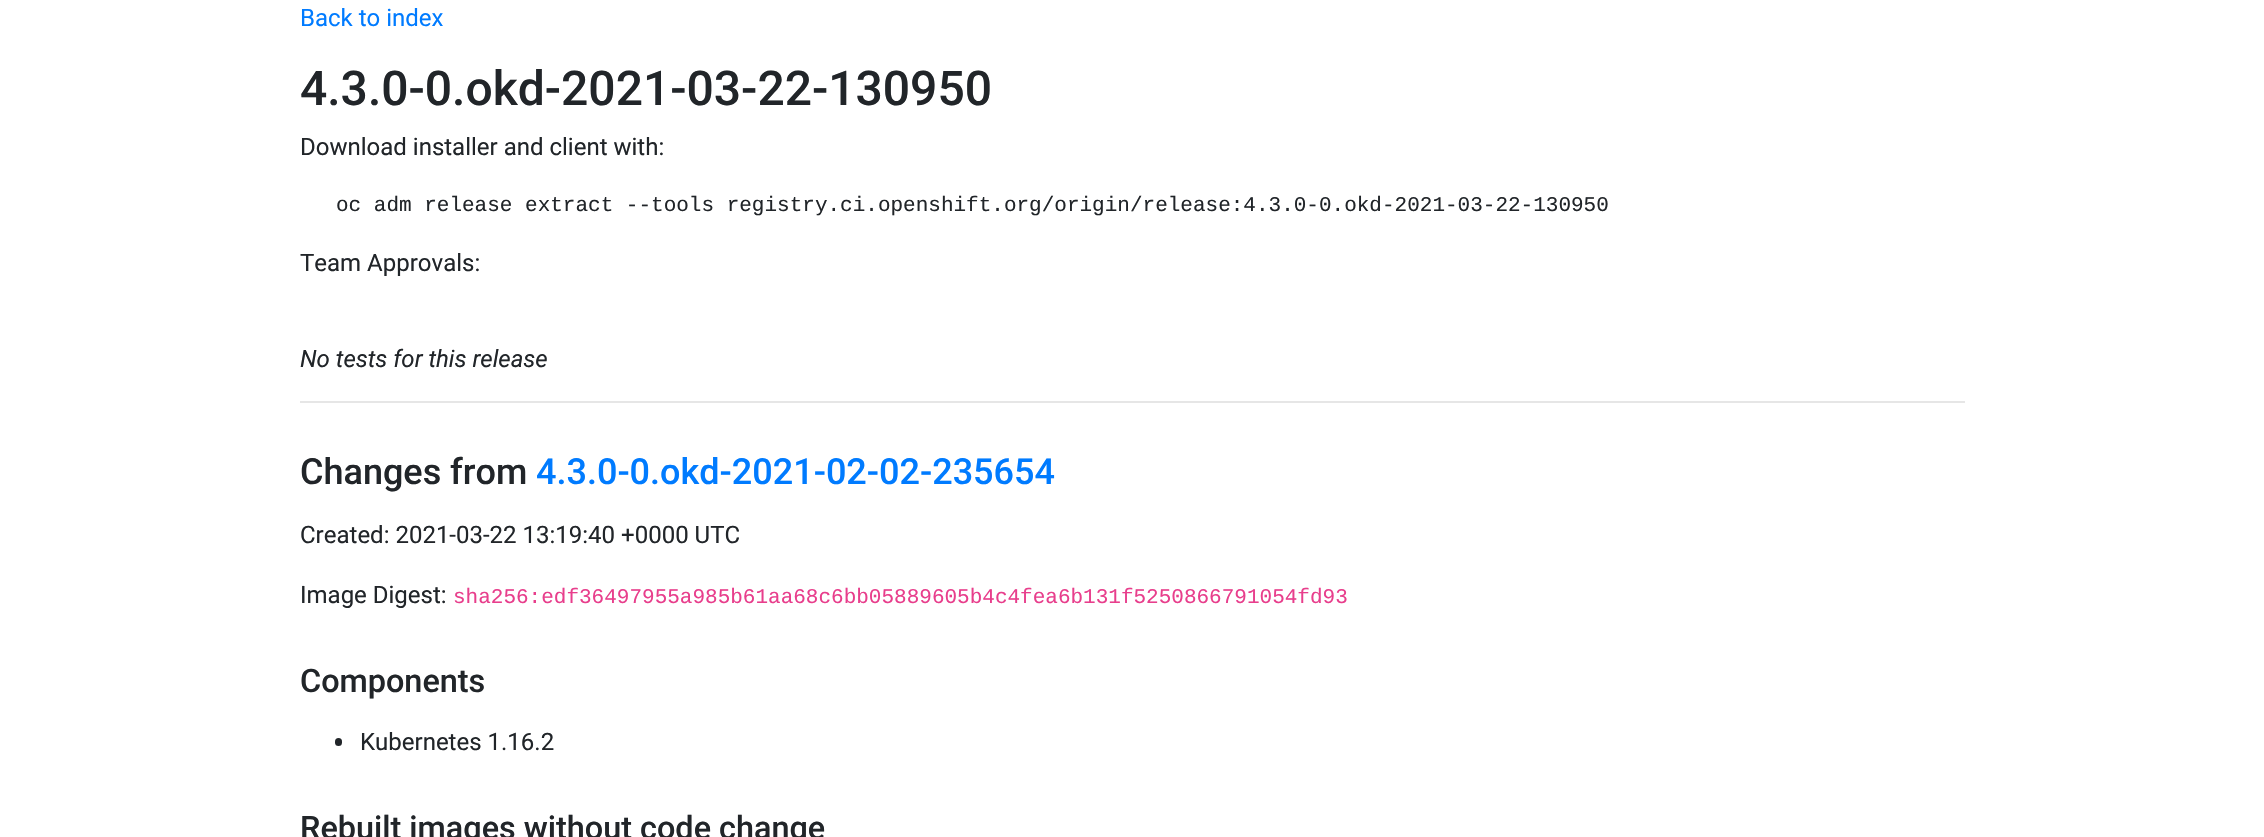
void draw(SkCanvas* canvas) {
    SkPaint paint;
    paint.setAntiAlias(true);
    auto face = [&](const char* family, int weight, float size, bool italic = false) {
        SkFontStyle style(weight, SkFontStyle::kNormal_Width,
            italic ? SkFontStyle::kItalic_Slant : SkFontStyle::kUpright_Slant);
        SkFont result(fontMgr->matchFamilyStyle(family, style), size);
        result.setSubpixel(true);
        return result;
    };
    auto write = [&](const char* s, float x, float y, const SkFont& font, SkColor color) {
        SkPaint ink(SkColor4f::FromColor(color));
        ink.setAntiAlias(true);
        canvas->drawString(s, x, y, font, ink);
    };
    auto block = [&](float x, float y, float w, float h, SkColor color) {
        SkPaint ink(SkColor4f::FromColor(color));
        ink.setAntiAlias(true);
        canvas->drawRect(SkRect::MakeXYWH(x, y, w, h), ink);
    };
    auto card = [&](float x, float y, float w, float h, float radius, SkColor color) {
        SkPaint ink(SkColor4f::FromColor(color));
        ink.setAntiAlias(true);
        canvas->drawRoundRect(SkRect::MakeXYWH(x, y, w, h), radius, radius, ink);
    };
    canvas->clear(SK_ColorWHITE);
    auto kFont1 = face("Roboto", 400, 24);
    write("Back to index", 300, 26, kFont1, SkColorSetRGB(0, 123, 255));
    auto kFont2 = face("Roboto", 500, 48);
    write("4.3.0-0.okd-2021-03-22-130950", 300, 105, kFont2, SkColorSetRGB(33, 37, 41));
    write("Download installer and client with:", 300, 155, kFont1, SkColorSetRGB(33, 37, 41));
    auto kFont3 = face("Liberation Mono", 400, 21);
    write("oc adm release extract --tools registry.ci.openshift.org/origin/release:4.3.0-0.okd-2021-03-22-130950", 336, 211, kFont3, SkColorSetRGB(33, 37, 41));
    write("Team Approvals:", 300, 271, kFont1, SkColorSetRGB(33, 37, 41));
    auto kFont4 = face("Roboto", 400, 24, true);
    write("No tests for this release", 300, 367, kFont4, SkColorSetRGB(33, 37, 41));
    block(300, 401, 1665, 2, SkColorSetRGB(230, 230, 230));
    auto kFont5 = face("Roboto", 500, 36);
    write("Changes from", 300, 484, kFont5, SkColorSetRGB(33, 37, 41));
    write("4.3.0-0.okd-2021-02-02-235654", 536, 484, kFont5, SkColorSetRGB(0, 123, 255));
    write("Created: 2021-03-22 13:19:40 +0000 UTC", 300, 543, kFont1, SkColorSetRGB(33, 37, 41));
    write("Image Digest:", 300, 603, kFont1, SkColorSetRGB(33, 37, 41));
    write("sha256:edf36497955a985b61aa68c6bb05889605b4c4fea6b131f5250866791054fd93", 453, 603, kFont3, SkColorSetRGB(232, 62, 140));
    auto kFont6 = face("Roboto", 500, 32.4f);
    write("Components", 300, 692, kFont6, SkColorSetRGB(33, 37, 41));
    card(335, 738, 7, 8, 3.5f, SkColorSetRGB(33, 37, 41));
    write("Kubernetes 1.16.2", 360, 750, kFont1, SkColorSetRGB(33, 37, 41));
    write("Rebuilt images without code change", 300, 839, kFont6, SkColorSetRGB(33, 37, 41));
}
